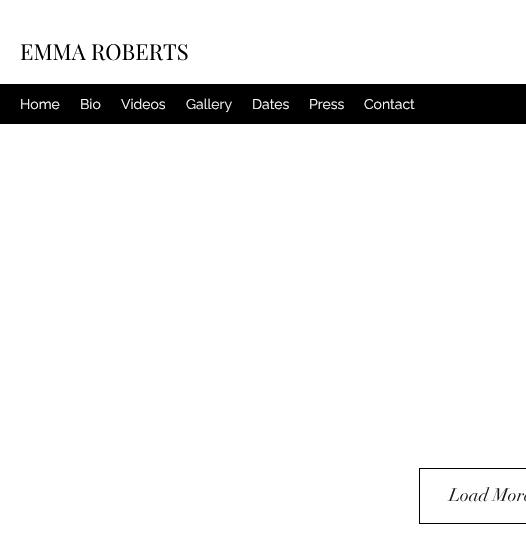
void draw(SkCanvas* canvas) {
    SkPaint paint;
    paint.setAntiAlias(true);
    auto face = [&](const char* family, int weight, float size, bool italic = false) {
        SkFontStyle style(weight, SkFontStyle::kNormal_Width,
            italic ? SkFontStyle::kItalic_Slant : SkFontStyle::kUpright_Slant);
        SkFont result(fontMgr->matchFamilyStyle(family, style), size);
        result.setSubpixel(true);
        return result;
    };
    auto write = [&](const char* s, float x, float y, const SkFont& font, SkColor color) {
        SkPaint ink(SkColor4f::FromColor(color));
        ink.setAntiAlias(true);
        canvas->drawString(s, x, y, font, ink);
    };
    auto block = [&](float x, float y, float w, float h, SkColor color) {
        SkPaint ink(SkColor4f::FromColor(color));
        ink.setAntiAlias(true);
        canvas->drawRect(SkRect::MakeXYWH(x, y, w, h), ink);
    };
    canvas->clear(SK_ColorWHITE);
    auto kFont1 = face("Playfair Display", 400, 22);
    write("EMMA ROBERTS", 20, 60, kFont1, SK_ColorBLACK);
    block(0, 84, 526, 40, SK_ColorBLACK);
    auto kFont2 = face("Raleway", 400, 14);
    write("Home", 20, 109, kFont2, SK_ColorWHITE);
    write("Bio", 80, 109, kFont2, SK_ColorWHITE);
    write("Videos", 121, 109, kFont2, SK_ColorWHITE);
    write("Gallery", 186, 109, kFont2, SkColorSetRGB(247, 247, 247));
    write("Dates", 252, 109, kFont2, SK_ColorWHITE);
    write("Press", 309, 109, kFont2, SK_ColorWHITE);
    write("Contact", 364, 109, kFont2, SK_ColorWHITE);
    paint.setStyle(SkPaint::kStroke_Style);
    paint.setStrokeWidth(1);
    paint.setColor(SK_ColorBLACK);
    canvas->drawRect(SkRect::MakeXYWH(419.5f, 468.5f, 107, 55), paint);
    auto kFont3 = face("didot", 400, 18);
    write("Load More", 449, 501, kFont3, SkColorSetRGB(26, 26, 26));
}
